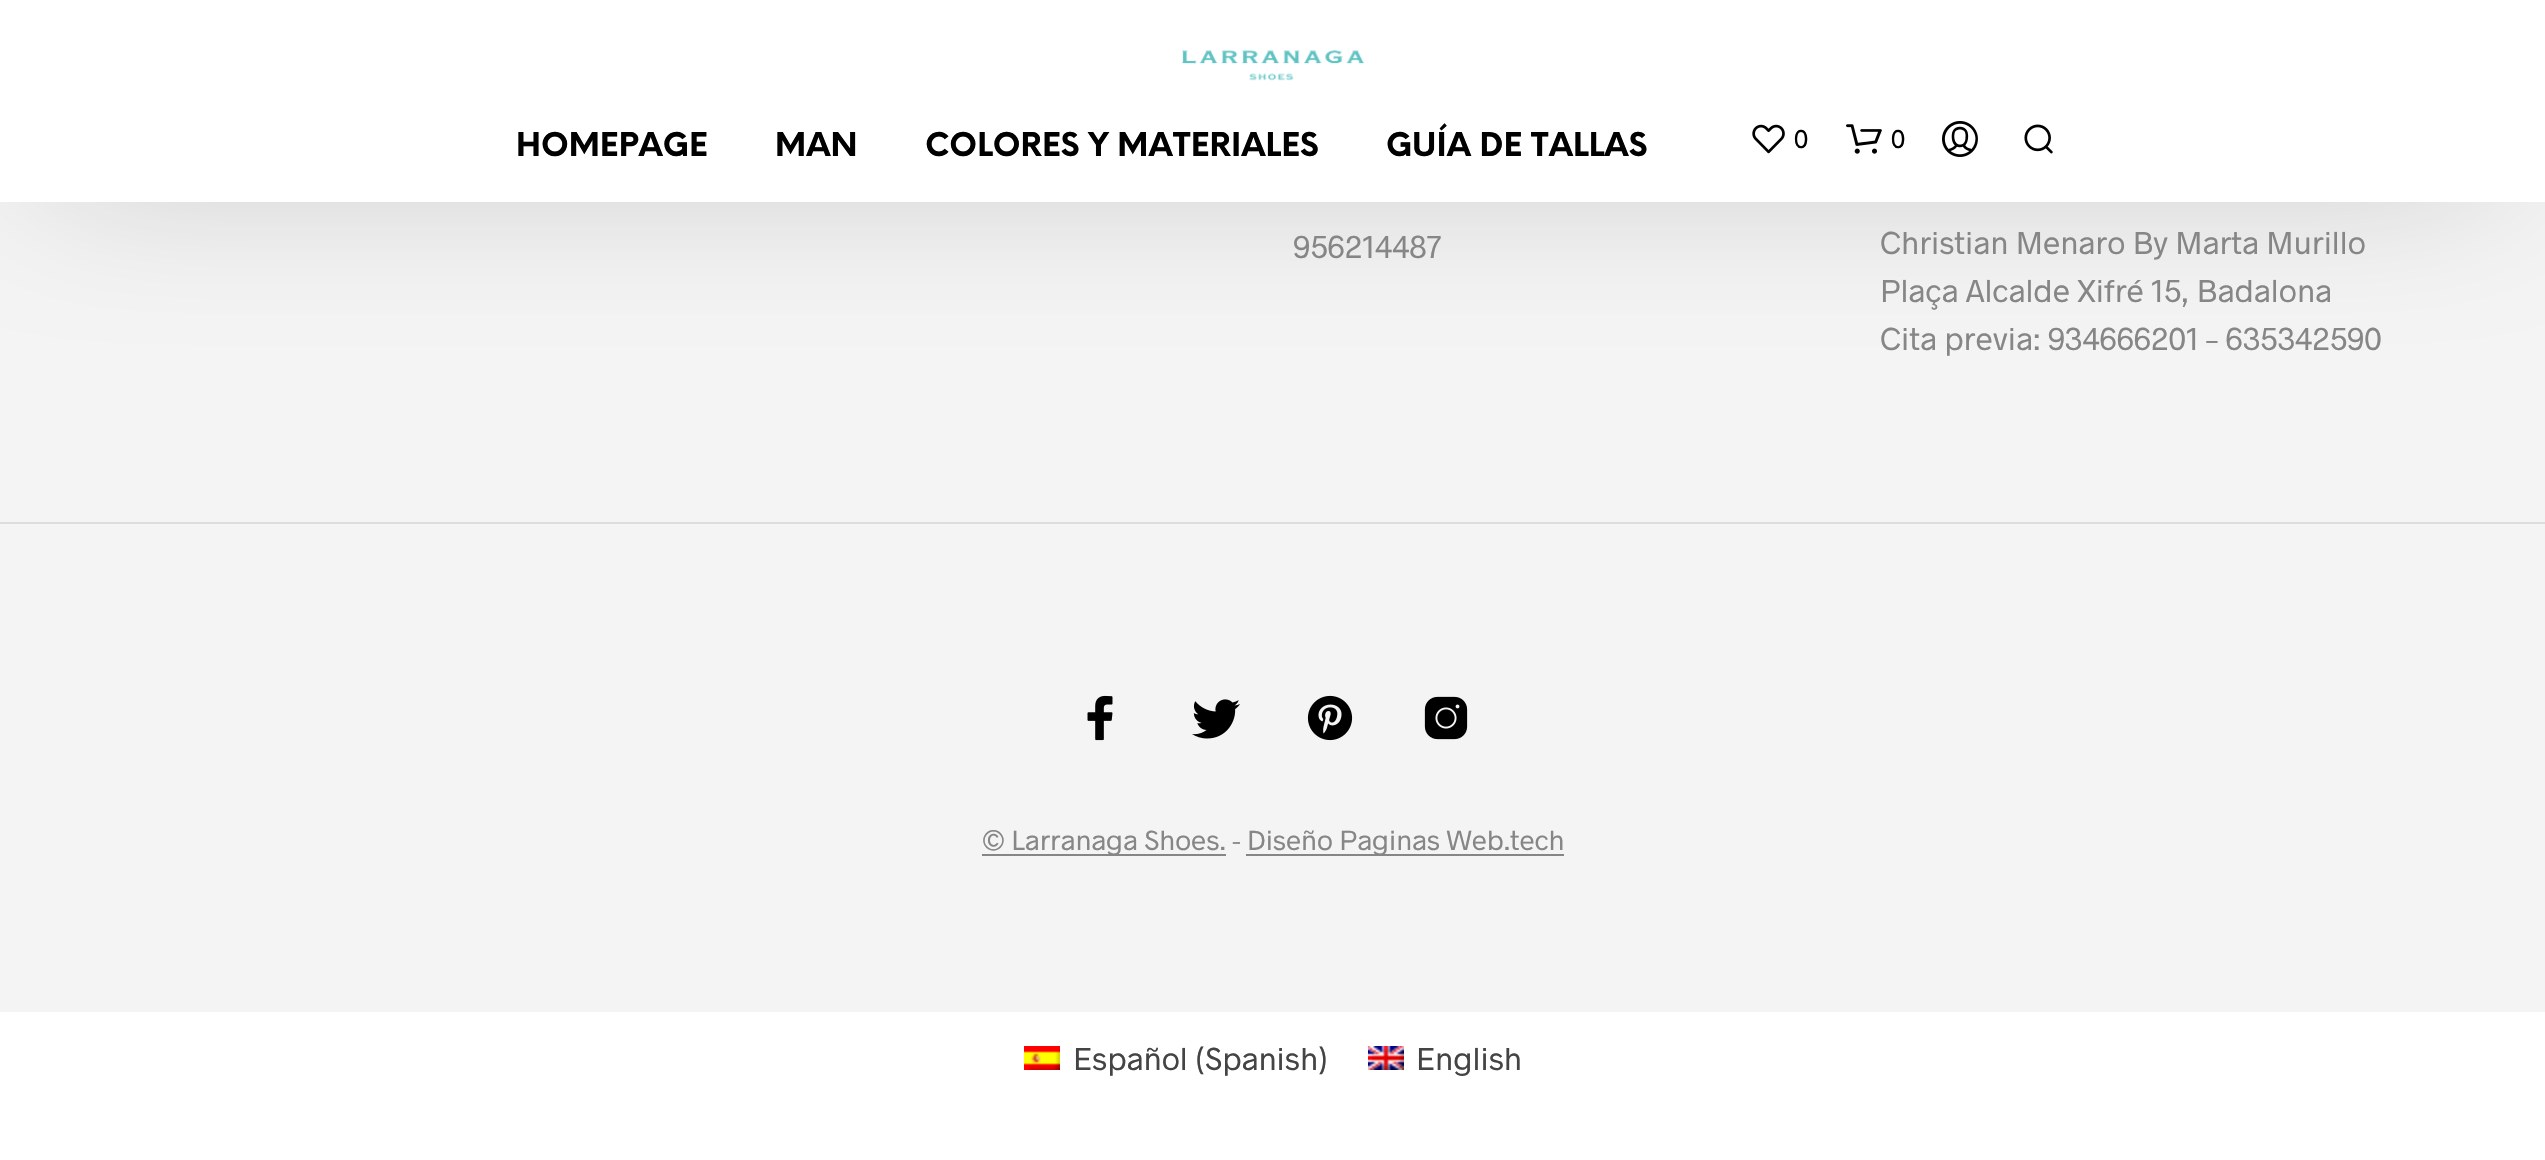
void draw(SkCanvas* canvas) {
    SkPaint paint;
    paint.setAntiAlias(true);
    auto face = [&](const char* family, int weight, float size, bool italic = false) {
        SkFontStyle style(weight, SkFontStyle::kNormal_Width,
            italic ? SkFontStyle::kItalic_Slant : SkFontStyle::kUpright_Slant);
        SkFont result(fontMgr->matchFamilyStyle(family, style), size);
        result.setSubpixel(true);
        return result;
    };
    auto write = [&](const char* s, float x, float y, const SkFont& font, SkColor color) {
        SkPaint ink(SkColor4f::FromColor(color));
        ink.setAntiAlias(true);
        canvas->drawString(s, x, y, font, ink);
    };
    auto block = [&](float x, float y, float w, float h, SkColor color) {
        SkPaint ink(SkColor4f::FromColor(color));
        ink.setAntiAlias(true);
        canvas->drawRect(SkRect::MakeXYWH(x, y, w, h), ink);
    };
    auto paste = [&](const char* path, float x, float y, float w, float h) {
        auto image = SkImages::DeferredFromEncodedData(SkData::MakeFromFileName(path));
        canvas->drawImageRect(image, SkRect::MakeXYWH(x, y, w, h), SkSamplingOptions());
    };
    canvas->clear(SK_ColorWHITE);
    block(0, 202, 2545, 810, SkColorSetRGB(244, 244, 244));
    paint.setColor(SkColorSetARGB(74, 0, 0, 0));
    paint.setMaskFilter(SkMaskFilter::MakeBlur(kNormal_SkBlurStyle, 81));
    canvas->drawRect(SkRect::MakeXYWH(50, 58, 2438, 94), paint);
    paint.setMaskFilter(nullptr);
    block(0, 0, 2545, 202, SK_ColorWHITE);
    paste("pic1.png", 1182, 50, 183, 31);
    auto kFont1 = face("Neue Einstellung", 700, 32);
    write("HOMEPAGE", 516, 156, kFont1, SK_ColorBLACK);
    write("MAN", 775, 156, kFont1, SK_ColorBLACK);
    write("COLORES Y MATERIALES", 925, 156, kFont1, SK_ColorBLACK);
    write("GUÍA DE TALLAS", 1386, 156, kFont1, SK_ColorBLACK);
    paste("pic2.png", 1752, 124, 33, 30);
    auto kFont2 = face("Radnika", 400, 26);
    write("0", 1794, 148, kFont2, SK_ColorBLACK);
    paste("pic3.png", 1846, 124, 36, 30);
    write("0", 1891, 148, kFont2, SK_ColorBLACK);
    paste("pic4.png", 1942, 121, 36, 36);
    paste("pic5.png", 2024, 124, 29, 30);
    block(0, 522, 2545, 2, SkColorSetRGB(221, 221, 221));
    auto kFont3 = face("Radnika", 400, 32);
    write("956214487", 1293, 258, kFont3, SkColorSetRGB(134, 134, 134));
    write("Christian Menaro By Marta Murillo", 1880, 254, kFont3, SkColorSetRGB(134, 134, 134));
    write("Plaça Alcalde Xifré 15, Badalona", 1880, 302, kFont3, SkColorSetRGB(134, 134, 134));
    write("Cita previa: 934666201 – 635342590", 1880, 350, kFont3, SkColorSetRGB(134, 134, 134));
    paste("pic6.png", 1087, 695, 26, 46);
    paste("pic7.png", 1192, 699, 48, 40);
    paste("pic8.png", 1307, 695, 46, 46);
    paste("pic9.png", 1424, 696, 44, 44);
    block(982, 854, 244, 2, SkColorSetRGB(134, 134, 134));
    auto kFont4 = face("Radnika", 400, 28);
    write("© Larranaga Shoes. -", 982, 850, kFont4, SkColorSetRGB(134, 134, 134));
    block(1246, 854, 318, 2, SkColorSetRGB(134, 134, 134));
    write("Diseño Paginas Web.tech", 1247, 850, kFont4, SkColorSetRGB(134, 134, 134));
    paste("pic10.png", 1024, 1046, 36, 24);
    write("Español (Spanish)", 1073, 1070, kFont3, SkColorSetRGB(68, 68, 68));
    paste("pic11.png", 1368, 1046, 36, 24);
    write("English", 1416, 1070, kFont3, SkColorSetRGB(68, 68, 68));
}
